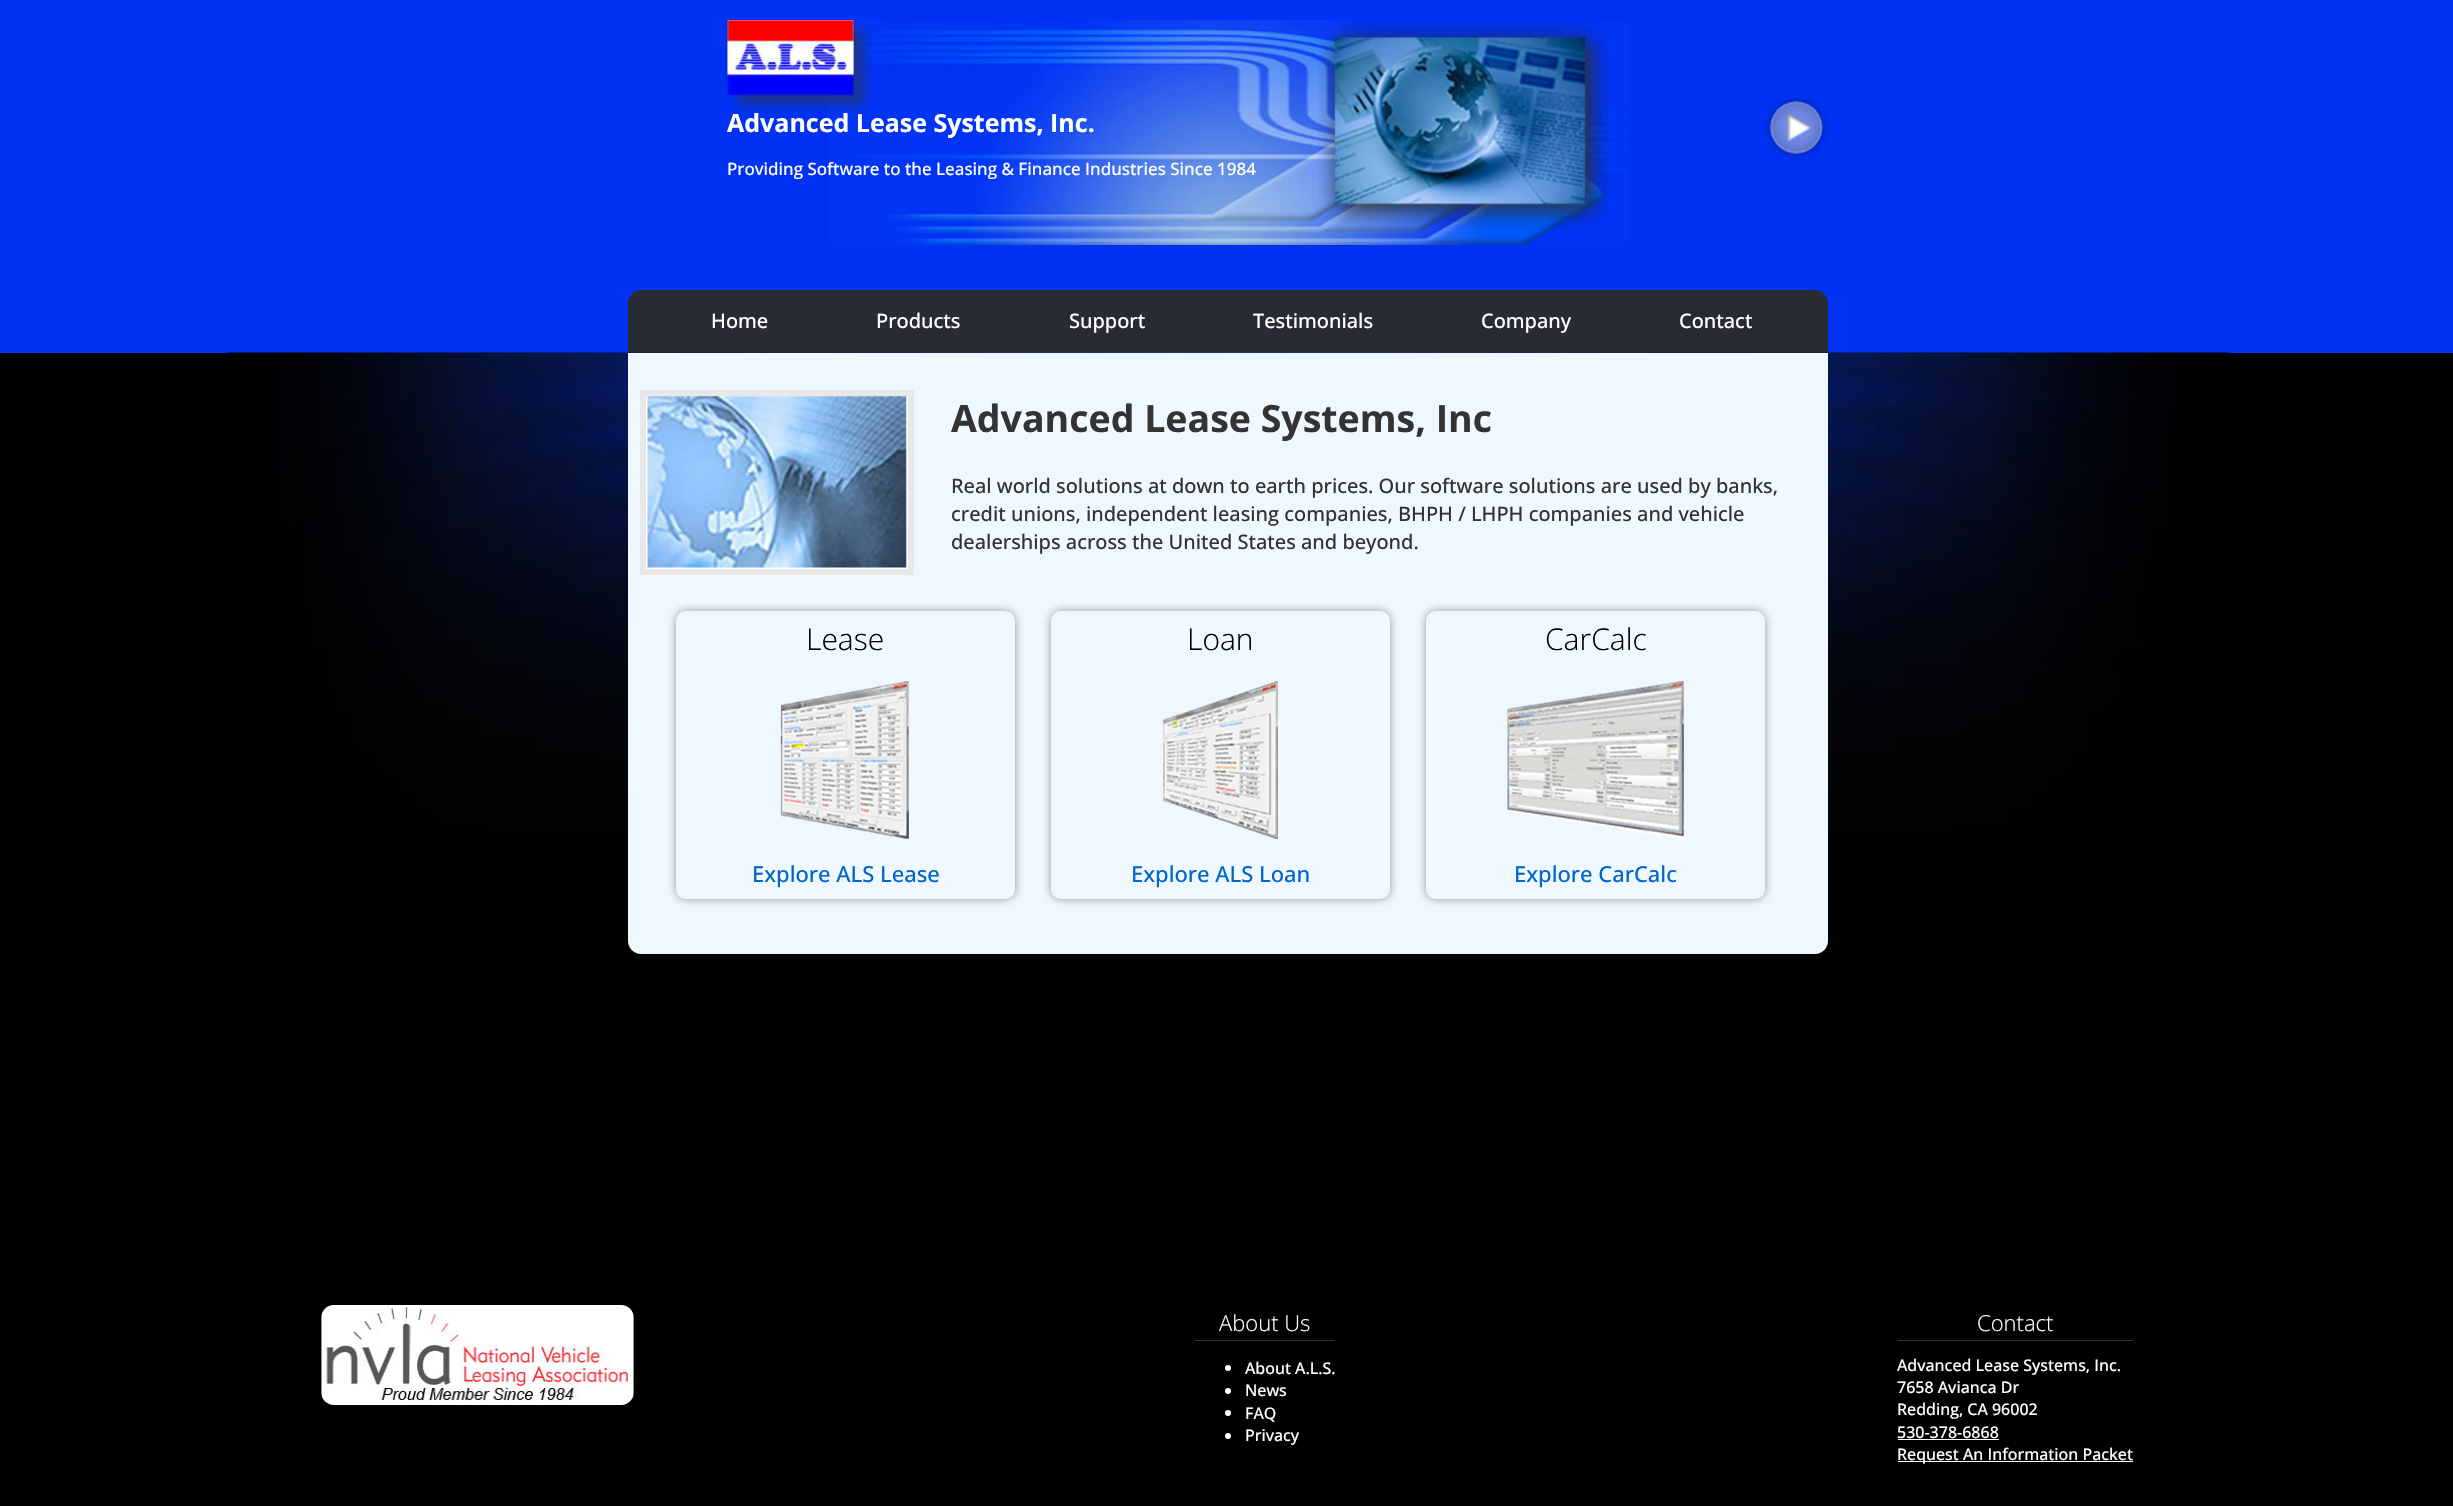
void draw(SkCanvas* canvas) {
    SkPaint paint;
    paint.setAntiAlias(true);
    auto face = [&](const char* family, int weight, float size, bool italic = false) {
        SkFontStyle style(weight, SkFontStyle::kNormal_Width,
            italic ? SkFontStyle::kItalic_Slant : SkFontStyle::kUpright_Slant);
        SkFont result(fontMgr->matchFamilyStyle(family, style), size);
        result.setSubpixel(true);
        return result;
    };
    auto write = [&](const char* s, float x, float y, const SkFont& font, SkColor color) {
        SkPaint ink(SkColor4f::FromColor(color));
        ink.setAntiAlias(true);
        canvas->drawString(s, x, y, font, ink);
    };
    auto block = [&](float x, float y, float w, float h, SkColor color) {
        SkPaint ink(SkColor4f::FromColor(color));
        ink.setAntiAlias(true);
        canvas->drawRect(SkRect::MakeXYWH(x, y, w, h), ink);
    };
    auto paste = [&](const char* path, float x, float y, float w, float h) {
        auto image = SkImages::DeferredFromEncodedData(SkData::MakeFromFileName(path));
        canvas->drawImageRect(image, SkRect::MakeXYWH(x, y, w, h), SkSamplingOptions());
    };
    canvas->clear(SK_ColorBLACK);
    block(0, 0, 2453, 353, SkColorSetRGB(0, 49, 245));
    paste("pic1.png", 829, 20, 800, 225);
    paint.setColor(SkColorSetARGB(128, 51, 51, 51));
    paint.setMaskFilter(SkMaskFilter::MakeBlur(kNormal_SkBlurStyle, 5));
    canvas->drawRect(SkRect::MakeXYWH(738, 30, 126, 75), paint);
    paint.setMaskFilter(nullptr);
    paste("pic2.png", 725, 20, 130, 76);
    auto kFont1 = face("Open Sans", 700, 25);
    write("Advanced Lease Systems, Inc.", 727, 132, kFont1, SK_ColorWHITE);
    auto kFont2 = face("Open Sans", 500, 17);
    write("Providing Software to the Leasing & Finance Industries Since 1984", 727, 175, kFont2, SK_ColorWHITE);
    paste("pic3.png", 1318, 20, 292, 209);
    paste("pic4.png", 1762, 95, 66, 66);
    paint.setColor(SkColorSetRGB(40, 42, 54));
    canvas->drawPath(SkPathBuilder().moveTo(641, 290).lineTo(1815, 290).cubicTo(1822, 290, 1828, 296, 1828, 303).lineTo(1828, 353).lineTo(628, 353).lineTo(628, 303).cubicTo(628, 296, 634, 290, 641, 290).close().detach(), paint);
    auto kFont3 = face("Open Sans", 500, 20);
    write("Home", 711, 328, kFont3, SK_ColorWHITE);
    write("Products", 876, 328, kFont3, SK_ColorWHITE);
    write("Support", 1069, 328, kFont3, SK_ColorWHITE);
    write("Testimonials", 1253, 328, kFont3, SK_ColorWHITE);
    write("Company", 1481, 328, kFont3, SK_ColorWHITE);
    write("Contact", 1679, 328, kFont3, SK_ColorWHITE);
    paste("pic5.png", 227, 352, 2001, 480);
    paint.setColor(SkColorSetRGB(240, 248, 255));
    canvas->drawPath(SkPathBuilder().moveTo(628, 353).lineTo(1828, 353).lineTo(1828, 941).cubicTo(1828, 948, 1822, 954, 1815, 954).lineTo(641, 954).cubicTo(634, 954, 628, 948, 628, 941).close().detach(), paint);
    paint.setColor(SK_ColorWHITE);
    canvas->drawRect(SkRect::MakeXYWH(643, 393, 268, 179), paint);
    paint.setStyle(SkPaint::kStroke_Style);
    paint.setStrokeWidth(6);
    paint.setColor(SkColorSetRGB(232, 232, 232));
    canvas->drawRect(SkRect::MakeXYWH(643, 393, 268, 179), paint);
    paste("pic6.png", 647, 396, 260, 172);
    auto kFont4 = face("Open Sans", 700, 37.5f);
    write("Advanced Lease Systems, Inc", 951, 432, kFont4, SkColorSetRGB(51, 51, 51));
    write("Real world solutions at down to earth prices. Our software solutions are used by banks,", 951, 493, kFont3, SkColorSetRGB(51, 51, 51));
    write("credit unions, independent leasing companies, BHPH / LHPH companies and vehicle", 951, 521, kFont3, SkColorSetRGB(51, 51, 51));
    write("dealerships across the United States and beyond.", 951, 549, kFont3, SkColorSetRGB(51, 51, 51));
    canvas->save();
    canvas->clipPath(SkPathBuilder(SkPathFillType::kEvenOdd).moveTo(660, 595).lineTo(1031, 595).lineTo(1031, 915).lineTo(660, 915).close().moveTo(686, 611).lineTo(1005, 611).cubicTo(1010.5f, 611, 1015, 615.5f, 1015, 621).lineTo(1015, 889).cubicTo(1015, 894.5f, 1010.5f, 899, 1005, 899).lineTo(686, 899).cubicTo(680.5f, 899, 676, 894.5f, 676, 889).lineTo(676, 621).cubicTo(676, 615.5f, 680.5f, 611, 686, 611).close().detach(), true);
    paint.setStyle(SkPaint::kFill_Style);
    paint.setColor(SkColorSetARGB(128, 51, 51, 51));
    paint.setMaskFilter(SkMaskFilter::MakeBlur(kNormal_SkBlurStyle, 5));
    canvas->drawRoundRect(SkRect::MakeXYWH(676, 611, 339, 288), 10, 10, paint);
    paint.setMaskFilter(nullptr);
    canvas->restore();
    auto kFont5 = face("Open Sans", 300, 30);
    write("Lease", 806, 650, kFont5, SK_ColorBLACK);
    paste("pic7.png", 780, 681, 129, 158);
    auto kFont6 = face("Open Sans", 500, 22);
    write("Explore ALS Lease", 752, 882, kFont6, SkColorSetRGB(0, 102, 204));
    canvas->save();
    canvas->clipPath(SkPathBuilder(SkPathFillType::kEvenOdd).moveTo(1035, 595).lineTo(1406, 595).lineTo(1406, 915).lineTo(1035, 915).close().moveTo(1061, 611).lineTo(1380, 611).cubicTo(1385.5f, 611, 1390, 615.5f, 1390, 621).lineTo(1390, 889).cubicTo(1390, 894.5f, 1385.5f, 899, 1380, 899).lineTo(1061, 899).cubicTo(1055.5f, 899, 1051, 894.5f, 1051, 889).lineTo(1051, 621).cubicTo(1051, 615.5f, 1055.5f, 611, 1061, 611).close().detach(), true);
    paint.setMaskFilter(SkMaskFilter::MakeBlur(kNormal_SkBlurStyle, 5));
    canvas->drawRoundRect(SkRect::MakeXYWH(1051, 611, 339, 288), 10, 10, paint);
    paint.setMaskFilter(nullptr);
    canvas->restore();
    write("Loan", 1187, 650, kFont5, SK_ColorBLACK);
    paste("pic8.png", 1163, 681, 115, 158);
    write("Explore ALS Loan", 1131, 882, kFont6, SkColorSetRGB(0, 102, 204));
    canvas->save();
    canvas->clipPath(SkPathBuilder(SkPathFillType::kEvenOdd).moveTo(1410, 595).lineTo(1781, 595).lineTo(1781, 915).lineTo(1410, 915).close().moveTo(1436, 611).lineTo(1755, 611).cubicTo(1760.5f, 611, 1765, 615.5f, 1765, 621).lineTo(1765, 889).cubicTo(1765, 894.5f, 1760.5f, 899, 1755, 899).lineTo(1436, 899).cubicTo(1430.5f, 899, 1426, 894.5f, 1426, 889).lineTo(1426, 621).cubicTo(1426, 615.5f, 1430.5f, 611, 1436, 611).close().detach(), true);
    paint.setMaskFilter(SkMaskFilter::MakeBlur(kNormal_SkBlurStyle, 5));
    canvas->drawRoundRect(SkRect::MakeXYWH(1426, 611, 339, 288), 10, 10, paint);
    paint.setMaskFilter(nullptr);
    canvas->restore();
    write("CarCalc", 1545, 650, kFont5, SK_ColorBLACK);
    paste("pic9.png", 1507, 681, 177, 158);
    write("Explore CarCalc", 1514, 882, kFont6, SkColorSetRGB(0, 102, 204));
    paste("pic10.png", 321, 1305, 313, 100);
    block(1195, 1340, 140, 1, SkColorSetRGB(51, 51, 51));
    auto kFont7 = face("Open Sans", 300, 22);
    write("About Us", 1219, 1331, kFont7, SK_ColorWHITE);
    paint.setColor(SK_ColorWHITE);
    canvas->drawCircle(1228, 1368, 3, paint);
    auto kFont8 = face("Open Sans", 500, 16);
    write("About A.L.S.", 1245, 1374, kFont8, SK_ColorWHITE);
    canvas->drawCircle(1228, 1391, 3, paint);
    write("News", 1245, 1396, kFont8, SK_ColorWHITE);
    canvas->drawCircle(1228, 1413, 3, paint);
    write("FAQ", 1245, 1419, kFont8, SK_ColorWHITE);
    canvas->drawCircle(1228, 1436, 3, paint);
    write("Privacy", 1245, 1441, kFont8, SK_ColorWHITE);
    block(1898, 1340, 235, 1, SkColorSetRGB(51, 51, 51));
    write("Contact", 1977, 1331, kFont7, SK_ColorWHITE);
    write("Advanced Lease Systems, Inc.", 1897, 1371, kFont8, SK_ColorWHITE);
    write("7658 Avianca Dr", 1897, 1393, kFont8, SK_ColorWHITE);
    write("Redding, CA 96002", 1897, 1415, kFont8, SK_ColorWHITE);
    write("530-378-6868", 1897, 1438, kFont8, SK_ColorWHITE);
    block(1898, 1439, 101, 1, SK_ColorWHITE);
    block(1898, 1461, 235, 1, SK_ColorWHITE);
    write("Request An Information Packet", 1897, 1460, kFont8, SK_ColorWHITE);
}
